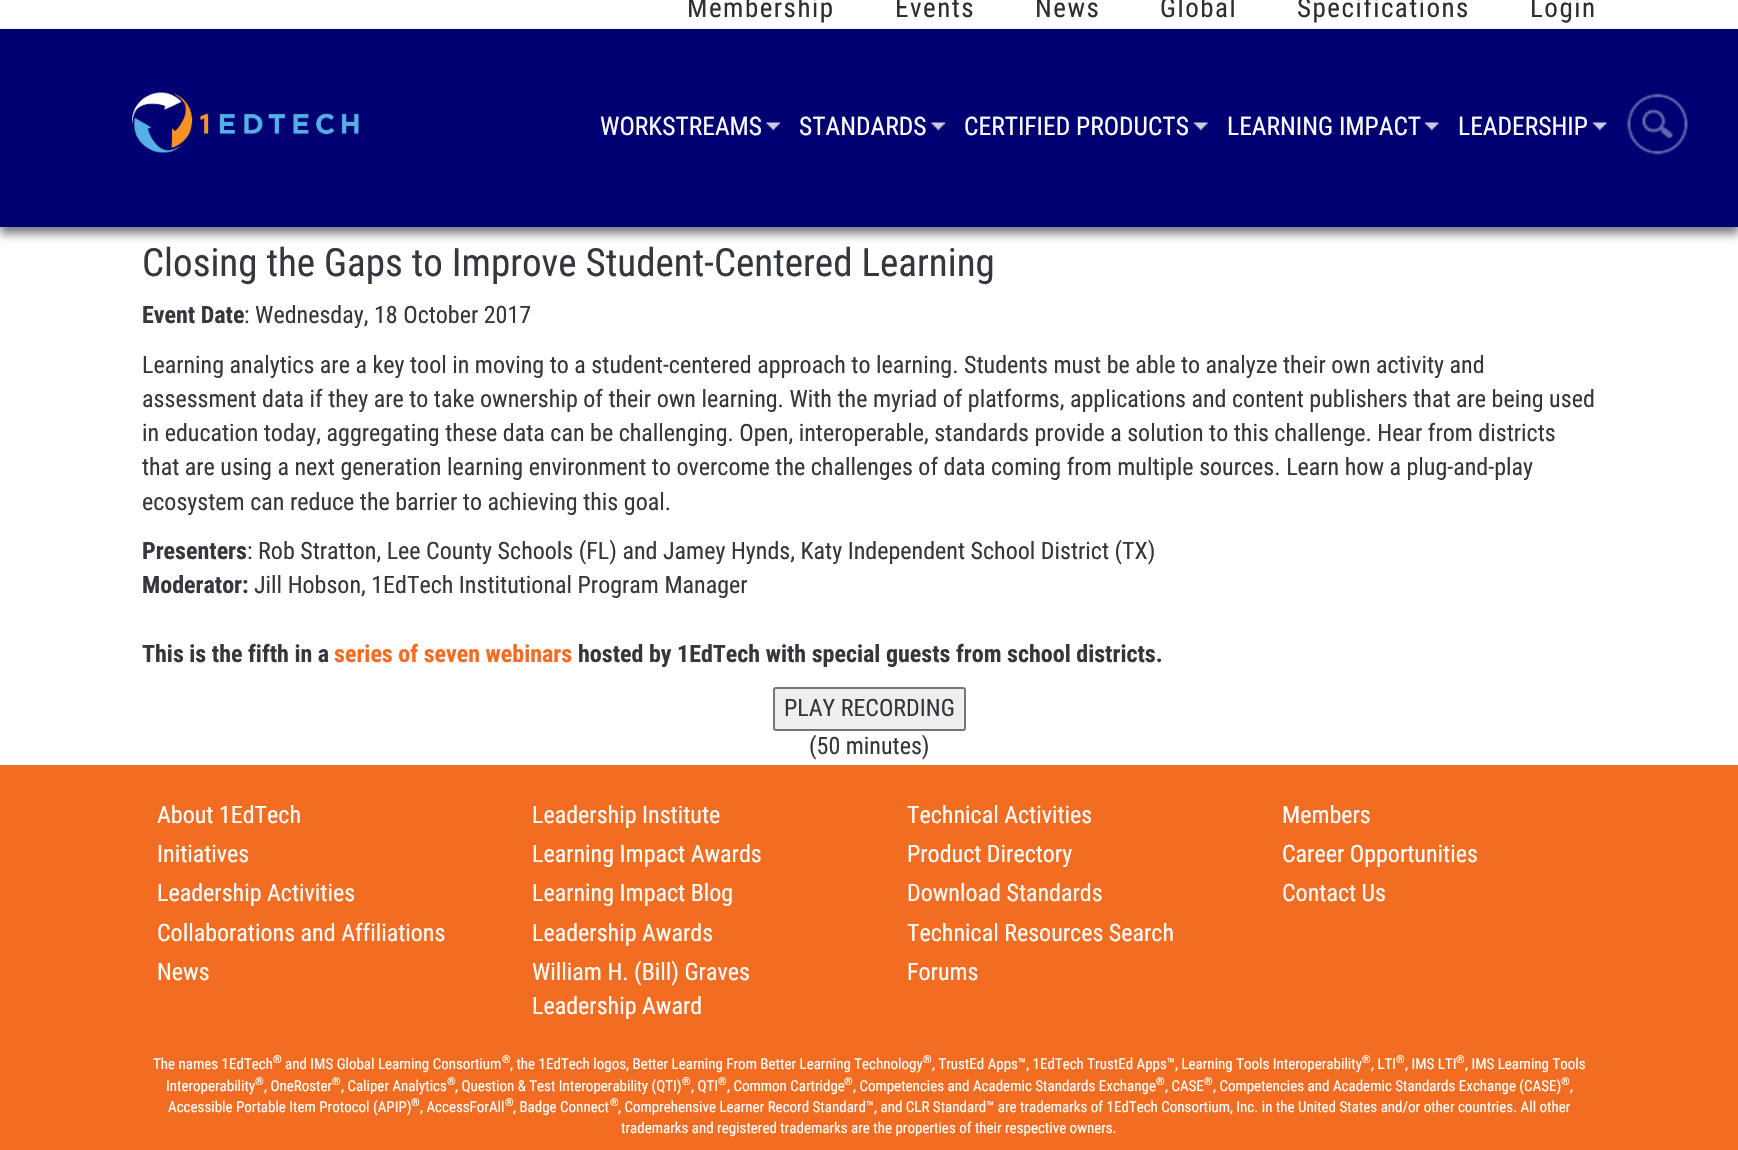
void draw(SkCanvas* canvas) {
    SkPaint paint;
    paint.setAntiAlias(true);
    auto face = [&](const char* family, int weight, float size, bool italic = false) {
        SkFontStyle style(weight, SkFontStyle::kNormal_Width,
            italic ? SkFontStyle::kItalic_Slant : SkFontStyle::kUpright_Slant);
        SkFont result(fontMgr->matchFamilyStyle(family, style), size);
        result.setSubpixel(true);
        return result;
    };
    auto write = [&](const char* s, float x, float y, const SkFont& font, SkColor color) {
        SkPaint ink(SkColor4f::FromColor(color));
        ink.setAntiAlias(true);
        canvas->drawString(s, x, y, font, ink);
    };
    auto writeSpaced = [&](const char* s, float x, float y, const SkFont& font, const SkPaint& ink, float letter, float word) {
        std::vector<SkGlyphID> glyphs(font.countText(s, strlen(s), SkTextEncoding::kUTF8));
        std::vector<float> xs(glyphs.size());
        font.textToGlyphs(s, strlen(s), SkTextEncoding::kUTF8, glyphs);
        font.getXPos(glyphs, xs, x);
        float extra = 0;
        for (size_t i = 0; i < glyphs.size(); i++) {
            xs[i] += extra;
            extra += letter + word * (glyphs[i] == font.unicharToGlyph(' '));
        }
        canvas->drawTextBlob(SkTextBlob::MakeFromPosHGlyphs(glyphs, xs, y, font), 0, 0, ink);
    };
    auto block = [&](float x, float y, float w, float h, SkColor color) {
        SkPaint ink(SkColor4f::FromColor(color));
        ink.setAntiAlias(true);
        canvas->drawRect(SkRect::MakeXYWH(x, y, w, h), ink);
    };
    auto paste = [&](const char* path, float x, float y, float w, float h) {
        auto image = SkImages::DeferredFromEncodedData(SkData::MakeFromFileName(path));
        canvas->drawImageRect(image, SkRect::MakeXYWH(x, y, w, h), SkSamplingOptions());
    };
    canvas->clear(SK_ColorWHITE);
    paint.setColor(SkColorSetARGB(128, 0, 0, 0));
    paint.setMaskFilter(SkMaskFilter::MakeBlur(kNormal_SkBlurStyle, 4.5f));
    canvas->drawRect(SkRect::MakeXYWH(0, 36, 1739, 198), paint);
    paint.setMaskFilter(nullptr);
    auto kFont1 = face("Roboto Condensed", 400, 27);
    paint.setColor(SkColorSetRGB(46, 47, 47));
    writeSpaced("Membership", 687, 17, kFont1, paint, 1.5f, 0);
    writeSpaced("Events", 895, 17, kFont1, paint, 1.5f, 0);
    writeSpaced("News", 1035, 17, kFont1, paint, 1.5f, 0);
    writeSpaced("Global", 1160, 17, kFont1, paint, 1.5f, 0);
    writeSpaced("Specifications", 1297, 17, kFont1, paint, 1.5f, 0);
    writeSpaced("Login", 1530, 17, kFont1, paint, 1.5f, 0);
    block(0, 29, 1738, 198, SkColorSetRGB(0, 0, 114));
    paste("pic1.png", 132, 92, 227, 61);
    auto kFont2 = face("Roboto Condensed", 400, 25.5f);
    write("WORKSTREAMS", 600, 135, kFont2, SK_ColorWHITE);
    paste("pic2.png", 766, 122, 14, 9);
    write("STANDARDS", 799, 135, kFont2, SK_ColorWHITE);
    paste("pic2.png", 931, 122, 14, 9);
    write("CERTIFIED PRODUCTS", 964, 135, kFont2, SK_ColorWHITE);
    paste("pic3.png", 1193, 122, 15, 9);
    write("LEARNING IMPACT", 1227, 135, kFont2, SK_ColorWHITE);
    paste("pic3.png", 1424, 122, 15, 9);
    write("LEADERSHIP", 1458, 135, kFont2, SK_ColorWHITE);
    paste("pic4.png", 1592, 122, 15, 9);
    paste("pic5.png", 1627, 93, 61, 62);
    auto kFont3 = face("Roboto Condensed", 400, 39);
    write("Closing the Gaps to Improve Student-Centered Learning", 142, 276, kFont3, SkColorSetRGB(52, 56, 61));
    auto kFont4 = face("Roboto Condensed", 700, 24);
    write("Event Date", 142, 323, kFont4, SkColorSetRGB(52, 56, 61));
    auto kFont5 = face("Roboto Condensed", 400, 24);
    write(": Wednesday, 18 October 2017", 244, 323, kFont5, SkColorSetRGB(52, 56, 61));
    write("Learning analytics are a key tool in moving to a student-centered approach to learning. Students must be able to analyze their own activity and", 142, 373, kFont5, SkColorSetRGB(52, 56, 61));
    write("assessment data if they are to take ownership of their own learning. With the myriad of platforms, applications and content publishers that are being used", 142, 407, kFont5, SkColorSetRGB(52, 56, 61));
    write("in education today, aggregating these data can be challenging. Open, interoperable, standards provide a solution to this challenge. Hear from districts", 142, 441, kFont5, SkColorSetRGB(52, 56, 61));
    write("that are using a next generation learning environment to overcome the challenges of data coming from multiple sources. Learn how a plug-and-play", 142, 475, kFont5, SkColorSetRGB(52, 56, 61));
    write("ecosystem can reduce the barrier to achieving this goal.", 142, 510, kFont5, SkColorSetRGB(52, 56, 61));
    write("Presenters", 142, 559, kFont4, SkColorSetRGB(52, 56, 61));
    write(": Rob Stratton, Lee County Schools (FL) and Jamey Hynds, Katy Independent School District (TX)", 247, 559, kFont5, SkColorSetRGB(52, 56, 61));
    write("Moderator:", 142, 593, kFont4, SkColorSetRGB(52, 56, 61));
    write("Jill Hobson, 1EdTech Institutional Program Manager", 254, 593, kFont5, SkColorSetRGB(52, 56, 61));
    write("This is the fifth in a", 142, 662, kFont4, SkColorSetRGB(52, 56, 61));
    write("series of seven webinars", 334, 662, kFont4, SkColorSetRGB(245, 107, 32));
    write("hosted by 1EdTech with special guests from school districts.", 578, 662, kFont4, SkColorSetRGB(52, 56, 61));
    paint.setColor(SkColorSetRGB(239, 239, 239));
    canvas->drawRoundRect(SkRect::MakeXYWH(774, 688, 191, 42), 2, 2, paint);
    paint.setStyle(SkPaint::kStroke_Style);
    paint.setStrokeWidth(2);
    paint.setColor(SkColorSetRGB(118, 118, 118));
    canvas->drawRoundRect(SkRect::MakeXYWH(774, 688, 191, 42), 2, 2, paint);
    write("PLAY RECORDING", 784, 716, kFont5, SkColorSetRGB(52, 56, 61));
    write("(50 minutes)", 809, 754, kFont5, SkColorSetRGB(52, 56, 61));
    block(0, 765, 1738, 385, SkColorSetRGB(242, 109, 34));
    write("About 1EdTech", 157, 823, kFont5, SK_ColorWHITE);
    write("Initiatives", 157, 862, kFont5, SK_ColorWHITE);
    write("Leadership Activities", 157, 901, kFont5, SK_ColorWHITE);
    write("Collaborations and Affiliations", 157, 941, kFont5, SK_ColorWHITE);
    write("News", 157, 980, kFont5, SK_ColorWHITE);
    write("Leadership Institute", 532, 823, kFont5, SK_ColorWHITE);
    write("Learning Impact Awards", 532, 862, kFont5, SK_ColorWHITE);
    write("Learning Impact Blog", 532, 901, kFont5, SK_ColorWHITE);
    write("Leadership Awards", 532, 941, kFont5, SK_ColorWHITE);
    write("William H. (Bill) Graves", 532, 980, kFont5, SK_ColorWHITE);
    write("Leadership Award", 532, 1014, kFont5, SK_ColorWHITE);
    write("Technical Activities", 907, 823, kFont5, SK_ColorWHITE);
    write("Product Directory", 907, 862, kFont5, SK_ColorWHITE);
    write("Download Standards", 907, 901, kFont5, SK_ColorWHITE);
    write("Technical Resources Search", 907, 941, kFont5, SK_ColorWHITE);
    write("Forums", 907, 980, kFont5, SK_ColorWHITE);
    write("Members", 1282, 823, kFont5, SK_ColorWHITE);
    write("Career Opportunities", 1282, 862, kFont5, SK_ColorWHITE);
    write("Contact Us", 1282, 901, kFont5, SK_ColorWHITE);
    auto kFont6 = face("Roboto Condensed", 400, 15);
    write("The names 1EdTech", 153, 1069, kFont6, SK_ColorWHITE);
    auto kFont7 = face("Roboto Condensed", 400, 11);
    write("®", 273, 1063, kFont7, SK_ColorWHITE);
    write("and IMS Global Learning Consortium", 285, 1069, kFont6, SK_ColorWHITE);
    write("®", 502, 1063, kFont7, SK_ColorWHITE);
    write(", the 1EdTech logos, Better Learning From Better Learning Technology", 510, 1069, kFont6, SK_ColorWHITE);
    write("®", 923, 1063, kFont7, SK_ColorWHITE);
    write(", TrustEd Apps™, 1EdTech TrustEd Apps™, Learning Tools Interoperability", 932, 1069, kFont6, SK_ColorWHITE);
    write(", LTI", 1371, 1069, kFont6, SK_ColorWHITE);
    write("®", 1362, 1063, kFont7, SK_ColorWHITE);
    write(", IMS LTI", 1405, 1069, kFont6, SK_ColorWHITE);
    write("®", 1396, 1063, kFont7, SK_ColorWHITE);
    write("®", 1456, 1063, kFont7, SK_ColorWHITE);
    write(", IMS Learning Tools", 1465, 1069, kFont6, SK_ColorWHITE);
    write("Interoperability", 166, 1091, kFont6, SK_ColorWHITE);
    write(", OneRoster", 264, 1091, kFont6, SK_ColorWHITE);
    write("®", 255, 1085, kFont7, SK_ColorWHITE);
    write(", Caliper Analytics", 341, 1091, kFont6, SK_ColorWHITE);
    write("®", 332, 1085, kFont7, SK_ColorWHITE);
    write("®", 447, 1085, kFont7, SK_ColorWHITE);
    write(", Question & Test Interoperability (QTI)", 455, 1091, kFont6, SK_ColorWHITE);
    write("®", 682, 1085, kFont7, SK_ColorWHITE);
    write(", QTI", 691, 1091, kFont6, SK_ColorWHITE);
    write(", Common Cartridge", 727, 1091, kFont6, SK_ColorWHITE);
    write("®", 718, 1085, kFont7, SK_ColorWHITE);
    write("®", 844, 1085, kFont7, SK_ColorWHITE);
    write(", Competencies and Academic Standards Exchange", 853, 1091, kFont6, SK_ColorWHITE);
    write("®", 1156, 1085, kFont7, SK_ColorWHITE);
    write(", CASE", 1165, 1091, kFont6, SK_ColorWHITE);
    write("®", 1204, 1085, kFont7, SK_ColorWHITE);
    write(", Competencies and Academic Standards Exchange (CASE)", 1213, 1091, kFont6, SK_ColorWHITE);
    write("®", 1561, 1085, kFont7, SK_ColorWHITE);
    write(",", 1570, 1091, kFont6, SK_ColorWHITE);
    write("Accessible Portable Item Protocol (APIP)", 168, 1112, kFont6, SK_ColorWHITE);
    write("®", 411, 1106, kFont7, SK_ColorWHITE);
    write(", AccessForAll", 420, 1112, kFont6, SK_ColorWHITE);
    write("®", 505, 1106, kFont7, SK_ColorWHITE);
    write(", Badge Connect", 513, 1112, kFont6, SK_ColorWHITE);
    write("®", 610, 1106, kFont7, SK_ColorWHITE);
    write(", Comprehensive Learner Record Standard™, and CLR Standard™ are trademarks of 1EdTech Consortium, Inc. in the United States and/or other countries. All other", 618, 1112, kFont6, SK_ColorWHITE);
    write("trademarks and registered trademarks are the properties of their respective owners.", 621, 1133, kFont6, SK_ColorWHITE);
}
